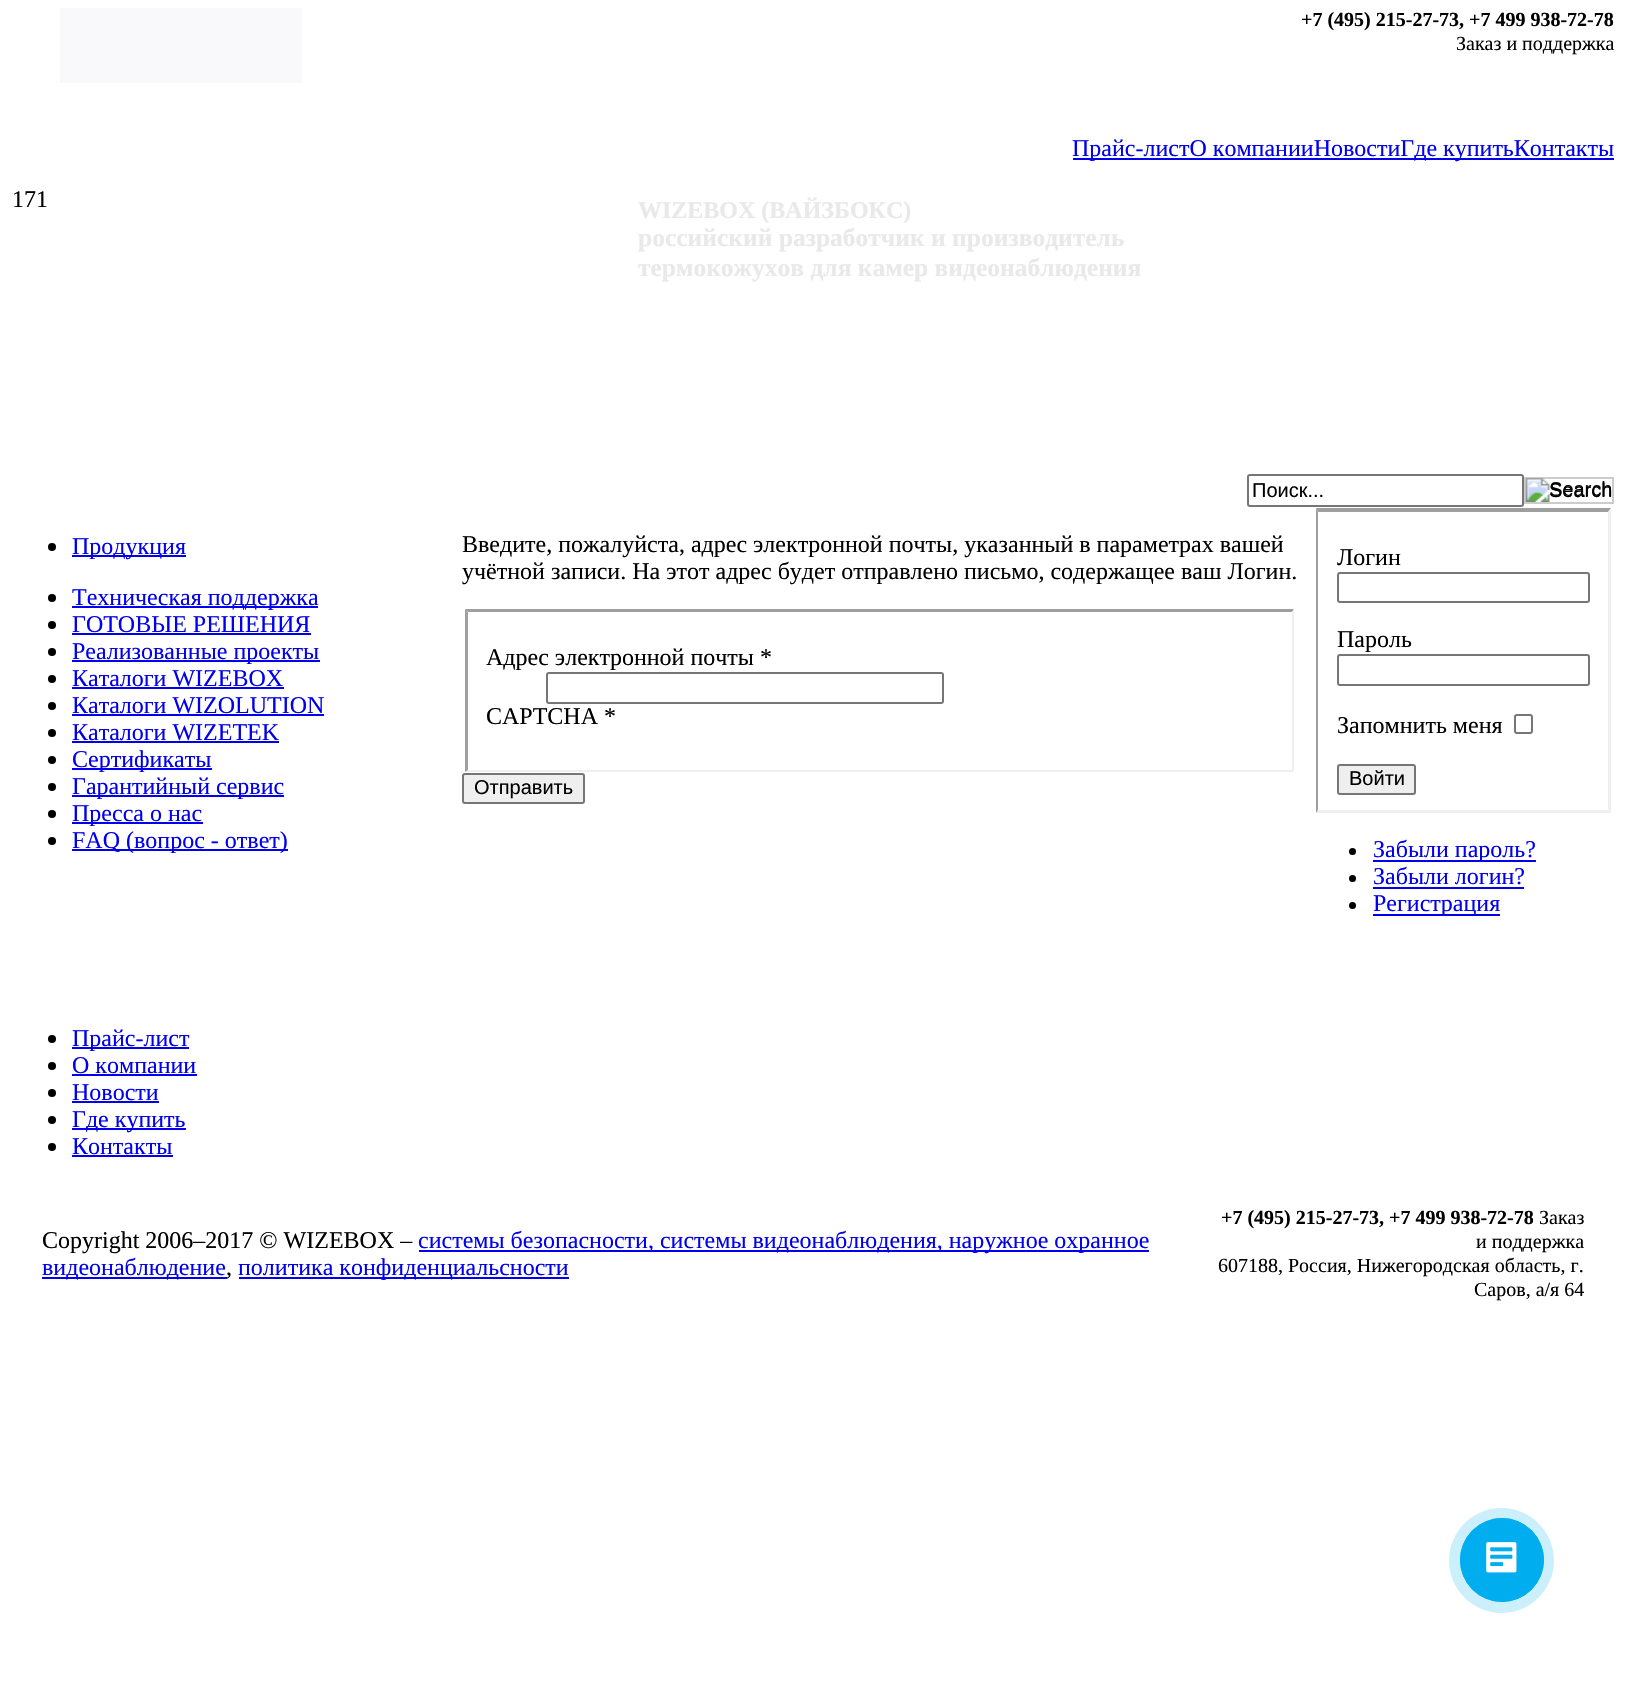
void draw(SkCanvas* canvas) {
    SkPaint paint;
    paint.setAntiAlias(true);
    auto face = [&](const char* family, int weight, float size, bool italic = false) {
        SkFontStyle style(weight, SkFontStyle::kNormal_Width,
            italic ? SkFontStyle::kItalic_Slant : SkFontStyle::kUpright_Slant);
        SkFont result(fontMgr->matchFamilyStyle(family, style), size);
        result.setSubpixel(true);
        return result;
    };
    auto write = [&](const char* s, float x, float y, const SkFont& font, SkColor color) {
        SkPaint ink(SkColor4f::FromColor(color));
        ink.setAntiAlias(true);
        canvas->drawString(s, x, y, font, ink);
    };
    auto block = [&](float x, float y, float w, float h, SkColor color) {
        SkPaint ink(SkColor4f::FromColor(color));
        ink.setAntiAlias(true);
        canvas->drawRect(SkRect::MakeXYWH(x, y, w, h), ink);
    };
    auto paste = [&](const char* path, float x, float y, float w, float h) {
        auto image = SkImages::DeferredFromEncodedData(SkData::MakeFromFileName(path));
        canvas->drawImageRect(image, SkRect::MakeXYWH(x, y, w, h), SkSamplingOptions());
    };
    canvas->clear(SK_ColorWHITE);
    block(60, 8, 242, 75, SkColorSetRGB(249, 249, 251));
    auto kFont1 = face("Liberation Serif", 700, 20);
    write("+7 (495) 215-27-73, +7 499 938-72-78", 1301, 26, kFont1, SK_ColorBLACK);
    auto kFont2 = face("Liberation Serif", 400, 20);
    write("Заказ и поддержка", 1456, 50, kFont2, SK_ColorBLACK);
    block(1073, 158, 541, 2, SkColorSetRGB(0, 0, 238));
    auto kFont3 = face("Liberation Serif", 400, 24);
    write("Прайс-листО компанииНовостиГде купитьКонтакты", 1072, 156, kFont3, SkColorSetRGB(0, 0, 238));
    write("171", 12, 207, kFont3, SK_ColorBLACK);
    auto kFont4 = face("Liberation Serif", 700, 24);
    write("WIZEBOX (ВАЙЗБОКС)", 638, 218, kFont4, SkColorSetRGB(233, 233, 233));
    auto kFont5 = face("Liberation Serif", 700, 25.5f);
    write("российский разработчик и производитель", 638, 246, kFont5, SkColorSetRGB(233, 233, 233));
    write("термокожухов для камер видеонаблюдения", 638, 276, kFont5, SkColorSetRGB(233, 233, 233));
    paint.setStyle(SkPaint::kStroke_Style);
    paint.setStrokeWidth(2);
    paint.setColor(SkColorSetRGB(118, 118, 118));
    canvas->drawRoundRect(SkRect::MakeXYWH(1248, 475, 275, 31), 2, 2, paint);
    auto kFont6 = face("Liberation Sans", 400, 20);
    write("Поиск...", 1252, 497, kFont6, SK_ColorBLACK);
    paint.setColor(SkColorSetRGB(204, 204, 204));
    canvas->drawRect(SkRect::MakeXYWH(1525, 478, 88, 25), paint);
    paste("pic1.png", 1525, 478, 87, 24);
    write("Search", 1549, 497, kFont6, SK_ColorBLACK);
    paint.setStyle(SkPaint::kFill_Style);
    paint.setColor(SK_ColorBLACK);
    canvas->drawCircle(52, 547, 4, paint);
    block(72, 555, 114, 2, SkColorSetRGB(0, 0, 238));
    write("Продукция", 72, 554, kFont3, SkColorSetRGB(0, 0, 238));
    canvas->drawCircle(52, 598, 4, paint);
    block(72, 606, 246, 2, SkColorSetRGB(0, 0, 238));
    write("Техническая поддержка", 72, 605, kFont3, SkColorSetRGB(0, 0, 238));
    canvas->drawCircle(52, 625, 4, paint);
    write("ГОТОВЫЕ РЕШЕНИЯ", 72, 632, kFont3, SkColorSetRGB(0, 0, 238));
    block(72, 633, 239, 2, SkColorSetRGB(0, 0, 238));
    canvas->drawCircle(52, 652, 4, paint);
    block(72, 660, 248, 2, SkColorSetRGB(0, 0, 238));
    write("Реализованные проекты", 72, 659, kFont3, SkColorSetRGB(0, 0, 238));
    canvas->drawCircle(52, 679, 4, paint);
    write("Каталоги WIZEBOX", 72, 686, kFont3, SkColorSetRGB(0, 0, 238));
    block(72, 687, 212, 2, SkColorSetRGB(0, 0, 238));
    canvas->drawCircle(52, 706, 4, paint);
    write("Каталоги WIZOLUTION", 72, 713, kFont3, SkColorSetRGB(0, 0, 238));
    block(72, 714, 252, 2, SkColorSetRGB(0, 0, 238));
    canvas->drawCircle(52, 733, 4, paint);
    write("Каталоги WIZETEK", 72, 740, kFont3, SkColorSetRGB(0, 0, 238));
    block(72, 741, 207, 2, SkColorSetRGB(0, 0, 238));
    canvas->drawCircle(52, 760, 4, paint);
    block(72, 768, 140, 2, SkColorSetRGB(0, 0, 238));
    write("Сертификаты", 72, 767, kFont3, SkColorSetRGB(0, 0, 238));
    canvas->drawCircle(52, 787, 4, paint);
    block(72, 795, 212, 2, SkColorSetRGB(0, 0, 238));
    write("Гарантийный сервис", 72, 794, kFont3, SkColorSetRGB(0, 0, 238));
    canvas->drawCircle(52, 814, 4, paint);
    block(72, 822, 131, 2, SkColorSetRGB(0, 0, 238));
    write("Пресса о нас", 72, 821, kFont3, SkColorSetRGB(0, 0, 238));
    canvas->drawCircle(52, 841, 4, paint);
    block(72, 849, 216, 2, SkColorSetRGB(0, 0, 238));
    write("FAQ (вопрос - ответ)", 72, 848, kFont3, SkColorSetRGB(0, 0, 238));
    write("Введите, пожалуйста, адрес электронной почты, указанный в параметрах вашей", 462, 552, kFont3, SK_ColorBLACK);
    write("учётной записи. На этот адрес будет отправлено письмо, содержащее ваш Логин.", 462, 579, kFont3, SK_ColorBLACK);
    paint.setColor(SkColorSetRGB(159, 159, 159));
    canvas->drawPath(SkPathBuilder().moveTo(465, 609).lineTo(1294, 609).lineTo(1292, 612).lineTo(468, 612).close().detach(), paint);
    paint.setColor(SkColorSetRGB(239, 239, 239));
    canvas->drawPath(SkPathBuilder().moveTo(1294, 609).lineTo(1294, 772).lineTo(1292, 770).lineTo(1292, 612).close().detach(), paint);
    canvas->drawPath(SkPathBuilder().moveTo(1294, 772).lineTo(465, 772).lineTo(468, 770).lineTo(1292, 770).close().detach(), paint);
    paint.setColor(SkColorSetRGB(159, 159, 159));
    canvas->drawPath(SkPathBuilder().moveTo(465, 772).lineTo(465, 609).lineTo(468, 612).lineTo(468, 770).close().detach(), paint);
    write("Адрес электронной почты *", 486, 665, kFont3, SK_ColorBLACK);
    paint.setStyle(SkPaint::kStroke_Style);
    paint.setColor(SkColorSetRGB(118, 118, 118));
    canvas->drawRoundRect(SkRect::MakeXYWH(547, 673, 396, 30), 2, 2, paint);
    write("CAPTCHA *", 486, 724, kFont3, SK_ColorBLACK);
    paint.setStyle(SkPaint::kFill_Style);
    paint.setColor(SkColorSetRGB(239, 239, 239));
    canvas->drawRoundRect(SkRect::MakeXYWH(463, 774, 121, 29), 2, 2, paint);
    paint.setStyle(SkPaint::kStroke_Style);
    paint.setColor(SkColorSetRGB(118, 118, 118));
    canvas->drawRoundRect(SkRect::MakeXYWH(463, 774, 121, 29), 2, 2, paint);
    write("Отправить", 474, 794, kFont6, SK_ColorBLACK);
    paint.setStyle(SkPaint::kFill_Style);
    paint.setColor(SkColorSetRGB(159, 159, 159));
    canvas->drawPath(SkPathBuilder().moveTo(1316, 508).lineTo(1611, 508).lineTo(1608, 512).lineTo(1318, 512).close().detach(), paint);
    paint.setColor(SkColorSetRGB(239, 239, 239));
    canvas->drawPath(SkPathBuilder().moveTo(1611, 508).lineTo(1611, 813).lineTo(1608, 810).lineTo(1608, 512).close().detach(), paint);
    canvas->drawPath(SkPathBuilder().moveTo(1611, 813).lineTo(1316, 813).lineTo(1318, 810).lineTo(1608, 810).close().detach(), paint);
    paint.setColor(SkColorSetRGB(159, 159, 159));
    canvas->drawPath(SkPathBuilder().moveTo(1316, 813).lineTo(1316, 508).lineTo(1318, 512).lineTo(1318, 810).close().detach(), paint);
    write("Логин", 1337, 565, kFont3, SK_ColorBLACK);
    paint.setStyle(SkPaint::kStroke_Style);
    paint.setColor(SkColorSetRGB(118, 118, 118));
    canvas->drawRoundRect(SkRect::MakeXYWH(1338, 573, 251, 29), 2, 2, paint);
    write("Пароль", 1337, 647, kFont3, SK_ColorBLACK);
    canvas->drawRoundRect(SkRect::MakeXYWH(1338, 655, 251, 30), 2, 2, paint);
    write("Запомнить меня", 1337, 733, kFont3, SK_ColorBLACK);
    canvas->drawRoundRect(SkRect::MakeXYWH(1515, 715, 17, 18), 2, 2, paint);
    paint.setStyle(SkPaint::kFill_Style);
    paint.setColor(SkColorSetRGB(239, 239, 239));
    canvas->drawRoundRect(SkRect::MakeXYWH(1338, 765, 77, 29), 2, 2, paint);
    paint.setStyle(SkPaint::kStroke_Style);
    paint.setColor(SkColorSetRGB(118, 118, 118));
    canvas->drawRoundRect(SkRect::MakeXYWH(1338, 765, 77, 29), 2, 2, paint);
    write("Войти", 1349, 785, kFont6, SK_ColorBLACK);
    paint.setStyle(SkPaint::kFill_Style);
    paint.setColor(SK_ColorBLACK);
    canvas->drawCircle(1352.5f, 851.5f, 3.5f, paint);
    block(1373, 860, 163, 2, SkColorSetRGB(0, 0, 238));
    write("Забыли пароль?", 1373, 857, kFont3, SkColorSetRGB(0, 0, 238));
    canvas->drawCircle(1352.5f, 878.5f, 3.5f, paint);
    write("Забыли логин?", 1373, 884, kFont3, SkColorSetRGB(0, 0, 238));
    block(1373, 887, 151, 2, SkColorSetRGB(0, 0, 238));
    canvas->drawCircle(1352.5f, 905.5f, 3.5f, paint);
    block(1373, 914, 127, 2, SkColorSetRGB(0, 0, 238));
    write("Регистрация", 1373, 911, kFont3, SkColorSetRGB(0, 0, 238));
    canvas->drawCircle(52, 1039, 4, paint);
    block(72, 1047, 117, 2, SkColorSetRGB(0, 0, 238));
    write("Прайс-лист", 72, 1046, kFont3, SkColorSetRGB(0, 0, 238));
    canvas->drawCircle(52, 1066, 4, paint);
    write("О компании", 72, 1073, kFont3, SkColorSetRGB(0, 0, 238));
    block(72, 1074, 125, 2, SkColorSetRGB(0, 0, 238));
    canvas->drawCircle(52, 1093, 4, paint);
    write("Новости", 72, 1100, kFont3, SkColorSetRGB(0, 0, 238));
    block(72, 1101, 87, 2, SkColorSetRGB(0, 0, 238));
    canvas->drawCircle(52, 1120, 4, paint);
    block(72, 1128, 114, 2, SkColorSetRGB(0, 0, 238));
    write("Где купить", 72, 1127, kFont3, SkColorSetRGB(0, 0, 238));
    canvas->drawCircle(52, 1147, 4, paint);
    write("Контакты", 72, 1154, kFont3, SkColorSetRGB(0, 0, 238));
    block(72, 1155, 101, 2, SkColorSetRGB(0, 0, 238));
    write("Copyright 2006–2017 © WIZEBOX –", 42, 1248, kFont3, SK_ColorBLACK);
    block(419, 1250, 730, 2, SkColorSetRGB(0, 0, 238));
    write("системы безопасности, системы видеонаблюдения, наружное охранное", 418, 1248, kFont3, SkColorSetRGB(0, 0, 238));
    block(42, 1277, 185, 2, SkColorSetRGB(0, 0, 238));
    write("видеонаблюдение", 42, 1275, kFont3, SkColorSetRGB(0, 0, 238));
    write(",", 226, 1275, kFont3, SK_ColorBLACK);
    block(239, 1277, 330, 2, SkColorSetRGB(0, 0, 238));
    write("политика конфиденциальсности", 238, 1275, kFont3, SkColorSetRGB(0, 0, 238));
    write("+7 (495) 215-27-73, +7 499 938-72-78", 1221, 1224, kFont1, SK_ColorBLACK);
    write("Заказ", 1539, 1224, kFont2, SK_ColorBLACK);
    write("и поддержка", 1476, 1248, kFont2, SK_ColorBLACK);
    write("607188, Россия, Нижегородская область, г.", 1218, 1272, kFont2, SK_ColorBLACK);
    write("Саров, а/я 64", 1474, 1296, kFont2, SK_ColorBLACK);
    paint.setColor(SkColorSetRGB(204, 239, 252));
    canvas->drawCircle(1501.5f, 1560.5f, 52.5f, paint);
    paint.setStyle(SkPaint::kStroke_Style);
    paint.setStrokeWidth(1);
    paint.setColor(SkColorSetRGB(0, 174, 239));
    canvas->drawCircle(1502, 1560, 41.5f, paint);
    paint.setStyle(SkPaint::kFill_Style);
    canvas->drawCircle(1502, 1560, 42, paint);
    paste("pic2.png", 1486, 1542, 31, 31);
}
